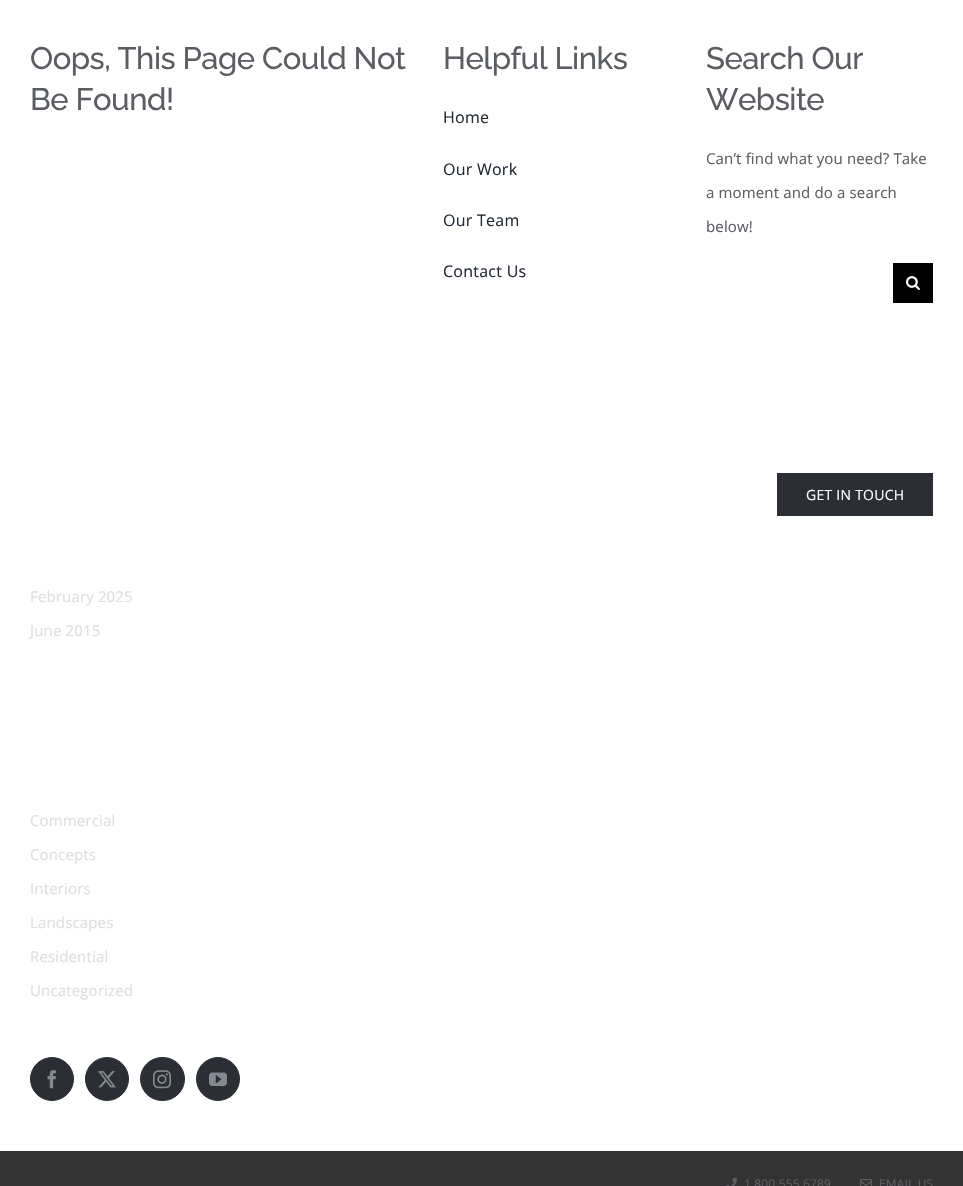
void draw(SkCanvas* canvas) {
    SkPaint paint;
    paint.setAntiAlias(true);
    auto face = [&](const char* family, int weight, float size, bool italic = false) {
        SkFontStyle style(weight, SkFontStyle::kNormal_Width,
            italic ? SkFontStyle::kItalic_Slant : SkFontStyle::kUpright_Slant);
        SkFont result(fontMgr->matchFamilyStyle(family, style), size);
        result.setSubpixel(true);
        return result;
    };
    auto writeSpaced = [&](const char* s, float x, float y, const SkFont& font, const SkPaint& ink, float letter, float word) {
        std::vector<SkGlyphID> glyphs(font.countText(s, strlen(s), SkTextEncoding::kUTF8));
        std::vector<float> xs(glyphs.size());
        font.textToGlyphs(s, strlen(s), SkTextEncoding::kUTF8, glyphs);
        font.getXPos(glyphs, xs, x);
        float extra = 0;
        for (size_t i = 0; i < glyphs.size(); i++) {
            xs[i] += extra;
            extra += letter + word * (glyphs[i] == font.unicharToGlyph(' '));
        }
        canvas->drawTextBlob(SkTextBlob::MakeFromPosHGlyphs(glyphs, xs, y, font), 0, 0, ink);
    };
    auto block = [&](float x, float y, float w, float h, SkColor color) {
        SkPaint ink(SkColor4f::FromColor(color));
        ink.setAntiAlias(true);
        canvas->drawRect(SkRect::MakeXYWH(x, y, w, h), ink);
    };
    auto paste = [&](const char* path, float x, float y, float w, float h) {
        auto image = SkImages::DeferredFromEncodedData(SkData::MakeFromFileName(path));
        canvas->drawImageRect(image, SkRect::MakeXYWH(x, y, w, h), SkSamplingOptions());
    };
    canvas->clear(SK_ColorWHITE);
    auto kFont1 = face("Raleway", 100, 31);
    paint.setColor(SkColorSetRGB(90, 93, 98));
    writeSpaced("Oops, This Page Could Not", 30, 69, kFont1, paint, -0.5f, 0);
    writeSpaced("Be Found!", 30, 110, kFont1, paint, -0.5f, 0);
    writeSpaced("Helpful Links", 443, 69, kFont1, paint, -0.5f, 0);
    auto kFont2 = face("Open Sans", 400, 16);
    paint.setColor(SkColorSetRGB(33, 41, 52));
    writeSpaced("Home", 443, 123, kFont2, paint, 0.25f, 0);
    writeSpaced("Our Work", 443, 175, kFont2, paint, 0.25f, 0);
    writeSpaced("Our Team", 443, 226, kFont2, paint, 0.25f, 0);
    writeSpaced("Contact Us", 443, 277, kFont2, paint, 0.25f, 0);
    paint.setColor(SkColorSetRGB(90, 93, 98));
    writeSpaced("Search Our", 706, 69, kFont1, paint, -0.5f, 0);
    writeSpaced("Website", 706, 110, kFont1, paint, -0.5f, 0);
    auto kFont3 = face("Open Sans", 400, 15);
    writeSpaced("Can’t find what you need? Take", 706, 164, kFont3, paint, 0.15f, 0);
    writeSpaced("a moment and do a search", 706, 198, kFont3, paint, 0.15f, 0);
    writeSpaced("below!", 706, 232, kFont3, paint, 0.15f, 0);
    block(893, 263, 40, 40, SK_ColorBLACK);
    paste("pic1.png", 906, 276, 14, 14);
    block(777, 473, 156, 43, SkColorSetRGB(43, 46, 53));
    auto kFont4 = face("Open Sans", 400, 14);
    paint.setColor(SK_ColorWHITE);
    writeSpaced("GET IN TOUCH", 806, 500, kFont4, paint, 0.25f, 0);
    paint.setColor(SkColorSetRGB(224, 222, 222));
    writeSpaced("February 2025", 30, 602, kFont3, paint, 0.15f, 0);
    writeSpaced("June 2015", 30, 636, kFont3, paint, 0.15f, 0);
    writeSpaced("Commercial", 30, 826, kFont3, paint, 0.15f, 0);
    writeSpaced("Concepts", 30, 860, kFont3, paint, 0.15f, 0);
    writeSpaced("Interiors", 30, 894, kFont3, paint, 0.15f, 0);
    writeSpaced("Landscapes", 30, 928, kFont3, paint, 0.15f, 0);
    writeSpaced("Residential", 30, 962, kFont3, paint, 0.15f, 0);
    writeSpaced("Uncategorized", 30, 996, kFont3, paint, 0.15f, 0);
    paint.setColor(SkColorSetRGB(43, 46, 53));
    canvas->drawCircle(52, 1079, 21.5f, paint);
    paint.setStyle(SkPaint::kStroke_Style);
    paint.setStrokeWidth(1);
    canvas->drawCircle(52, 1079, 21.5f, paint);
    paste("pic2.png", 47, 1070, 9, 19);
    paint.setStyle(SkPaint::kFill_Style);
    canvas->drawCircle(107, 1079, 21.5f, paint);
    paint.setStyle(SkPaint::kStroke_Style);
    canvas->drawCircle(107, 1079, 21.5f, paint);
    paste("pic3.png", 98, 1071, 18, 17);
    paint.setStyle(SkPaint::kFill_Style);
    canvas->drawRoundRect(SkRect::MakeXYWH(140.5f, 1057.5f, 44, 43), 21.5f, 21.5f, paint);
    paint.setStyle(SkPaint::kStroke_Style);
    canvas->drawRoundRect(SkRect::MakeXYWH(140.5f, 1057.5f, 44, 43), 21.5f, 21.5f, paint);
    paste("pic4.png", 153, 1070, 18, 19);
    paint.setStyle(SkPaint::kFill_Style);
    canvas->drawCircle(218, 1079, 21.5f, paint);
    paint.setStyle(SkPaint::kStroke_Style);
    canvas->drawCircle(218, 1079, 21.5f, paint);
    paste("pic5.png", 209, 1072, 18, 14);
    block(0, 1151, 963, 35, SkColorSetRGB(51, 51, 51));
    paste("pic6.png", 725, 1177, 12, 9);
    auto kFont5 = face("Open Sans", 400, 12);
    paint.setStyle(SkPaint::kFill_Style);
    paint.setColor(SkColorSetRGB(90, 93, 98));
    writeSpaced("1.800.555.6789", 744, 1188, kFont5, paint, 0.15f, 0);
    paste("pic7.png", 860, 1179, 12, 7);
    writeSpaced("EMAIL US", 879, 1188, kFont5, paint, 0.15f, 0);
}
